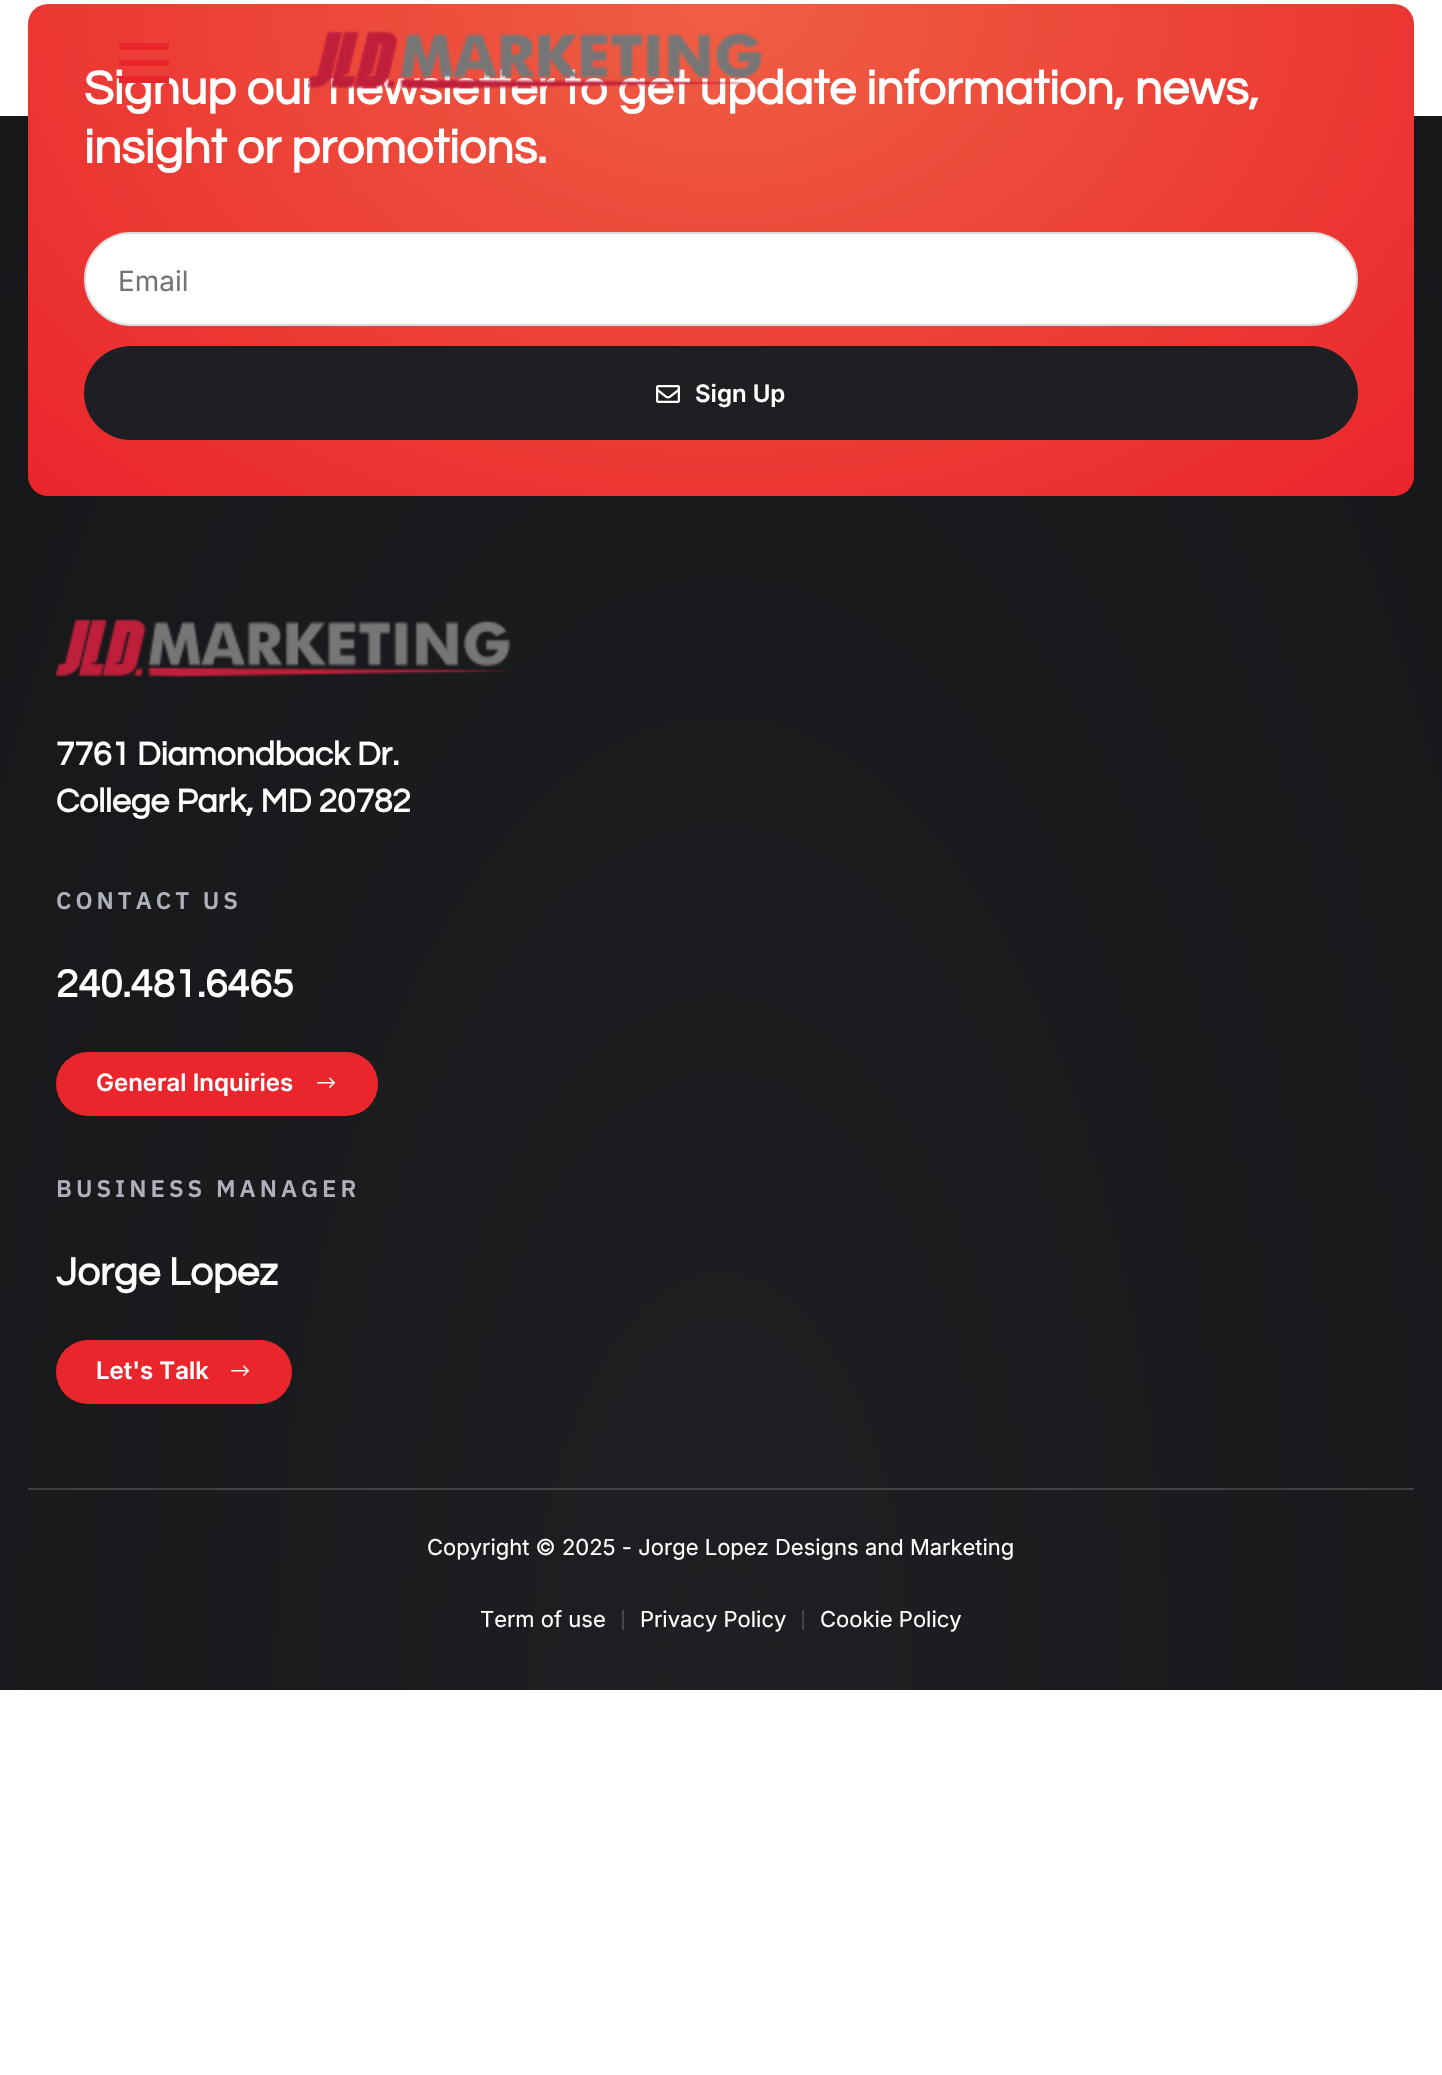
void draw(SkCanvas* canvas) {
    SkPaint paint;
    paint.setAntiAlias(true);
    auto face = [&](const char* family, int weight, float size, bool italic = false) {
        SkFontStyle style(weight, SkFontStyle::kNormal_Width,
            italic ? SkFontStyle::kItalic_Slant : SkFontStyle::kUpright_Slant);
        SkFont result(fontMgr->matchFamilyStyle(family, style), size);
        result.setSubpixel(true);
        return result;
    };
    auto write = [&](const char* s, float x, float y, const SkFont& font, SkColor color) {
        SkPaint ink(SkColor4f::FromColor(color));
        ink.setAntiAlias(true);
        canvas->drawString(s, x, y, font, ink);
    };
    auto writeSpaced = [&](const char* s, float x, float y, const SkFont& font, const SkPaint& ink, float letter, float word) {
        std::vector<SkGlyphID> glyphs(font.countText(s, strlen(s), SkTextEncoding::kUTF8));
        std::vector<float> xs(glyphs.size());
        font.textToGlyphs(s, strlen(s), SkTextEncoding::kUTF8, glyphs);
        font.getXPos(glyphs, xs, x);
        float extra = 0;
        for (size_t i = 0; i < glyphs.size(); i++) {
            xs[i] += extra;
            extra += letter + word * (glyphs[i] == font.unicharToGlyph(' '));
        }
        canvas->drawTextBlob(SkTextBlob::MakeFromPosHGlyphs(glyphs, xs, y, font), 0, 0, ink);
    };
    auto block = [&](float x, float y, float w, float h, SkColor color) {
        SkPaint ink(SkColor4f::FromColor(color));
        ink.setAntiAlias(true);
        canvas->drawRect(SkRect::MakeXYWH(x, y, w, h), ink);
    };
    auto card = [&](float x, float y, float w, float h, float radius, SkColor color) {
        SkPaint ink(SkColor4f::FromColor(color));
        ink.setAntiAlias(true);
        canvas->drawRoundRect(SkRect::MakeXYWH(x, y, w, h), radius, radius, ink);
    };
    auto paste = [&](const char* path, float x, float y, float w, float h) {
        auto image = SkImages::DeferredFromEncodedData(SkData::MakeFromFileName(path));
        canvas->drawImageRect(image, SkRect::MakeXYWH(x, y, w, h), SkSamplingOptions());
    };
    canvas->clear(SK_ColorWHITE);
    {
        const SkColor colors[] = {SkColorSetRGB(29, 31, 34), SkColorSetRGB(21, 23, 25)};
        const float stops[] = {0, 1};
        SkMatrix m = SkMatrix::Translate(721, 1690).preScale(1020, 2226);
        paint.setShader(SkGradientShader::MakeRadial({0, 0}, 1, colors, stops, 2, SkTileMode::kClamp, 0, &m));
        paint.setAlpha(255);
    }
    canvas->drawRect(SkRect::MakeXYWH(0, 116, 1442, 1574), paint);
    {
        const SkColor colors[] = {SkColorSetRGB(239, 95, 67), SkColorSetRGB(234, 37, 44)};
        const float stops[] = {0, 1};
        SkMatrix m = SkMatrix::Translate(721, 4).preScale(980, 696);
        paint.setShader(SkGradientShader::MakeRadial({0, 0}, 1, colors, stops, 2, SkTileMode::kClamp, 0, &m));
        paint.setAlpha(255);
    }
    canvas->drawRoundRect(SkRect::MakeXYWH(28, 4, 1386, 492), 20, 20, paint);
    auto kFont1 = face("Questrial", 700, 48.4f);
    write("Signup our newsletter to get update information, news,", 84, 104, kFont1, SK_ColorWHITE);
    paint.setShader(nullptr);
    paint.setColor(SkColorSetRGB(234, 37, 44));
    canvas->drawPath(SkPathBuilder().moveTo(169, 43).lineTo(169, 50).lineTo(119, 50).lineTo(119, 43).close().moveTo(119, 66).lineTo(169, 66).lineTo(169, 60).lineTo(119, 60).close().moveTo(119, 83).lineTo(169, 83).lineTo(169, 76).lineTo(119, 76).close().detach(), paint);
    paste("pic1.png", 308, 31, 455, 60);
    {
        const SkColor colors[] = {SkColorSetRGB(67, 69, 72), SkColorSetRGB(61, 62, 64)};
        const float stops[] = {0, 1};
        SkMatrix m = SkMatrix::Translate(721, 1690).preScale(1020, 2226);
        paint.setShader(SkGradientShader::MakeRadial({0, 0}, 1, colors, stops, 2, SkTileMode::kClamp, 0, &m));
        paint.setAlpha(255);
    }
    canvas->drawRect(SkRect::MakeXYWH(28, 1488, 1386, 2), paint);
    write("insight or promotions.", 84, 163, kFont1, SK_ColorWHITE);
    paint.setShader(nullptr);
    paint.setColor(SK_ColorWHITE);
    canvas->drawRoundRect(SkRect::MakeXYWH(85, 233, 1272, 92), 46, 46, paint);
    paint.setStyle(SkPaint::kStroke_Style);
    paint.setStrokeWidth(2);
    paint.setColor(SkColorSetRGB(220, 220, 222));
    canvas->drawRoundRect(SkRect::MakeXYWH(85, 233, 1272, 92), 46, 46, paint);
    auto kFont2 = face("Inter", 400, 28);
    write("Email", 118, 291, kFont2, SkColorSetRGB(115, 116, 117));
    card(84, 346, 1274, 94, 47, SkColorSetRGB(29, 31, 34));
    paste("pic2.png", 656, 385, 24, 18);
    auto kFont3 = face("Inter", 600, 24);
    write("Sign Up", 695, 402, kFont3, SK_ColorWHITE);
    paste("pic3.png", 56, 619, 455, 60);
    auto kFont4 = face("Questrial", 700, 33.6f);
    write("7761 Diamondback Dr.", 56, 765, kFont4, SK_ColorWHITE);
    write("College Park, MD 20782", 56, 812, kFont4, SK_ColorWHITE);
    auto kFont5 = face("IBM Plex Sans", 600, 24);
    paint.setStyle(SkPaint::kFill_Style);
    paint.setColor(SkColorSetRGB(174, 177, 185));
    writeSpaced("CONTACT US", 56, 909, kFont5, paint, 4, 0);
    auto kFont6 = face("Questrial", 700, 40.25f);
    write("240.481.6465", 56, 997, kFont6, SK_ColorWHITE);
    card(56, 1052, 322, 64, 32, SkColorSetRGB(234, 37, 44));
    write("General Inquiries", 96, 1091, kFont3, SK_ColorWHITE);
    paste("pic4.png", 317, 1077, 18, 11);
    writeSpaced("BUSINESS MANAGER", 56, 1197, kFont5, paint, 4, 0);
    write("Jorge Lopez", 56, 1285, kFont6, SK_ColorWHITE);
    card(56, 1340, 236, 64, 32, SkColorSetRGB(234, 37, 44));
    write("Let's Talk", 96, 1379, kFont3, SK_ColorWHITE);
    paste("pic4.png", 231, 1365, 18, 11);
    auto kFont7 = face("Inter", 400, 22);
    write("Copyright © 2025 - Jorge Lopez Designs and Marketing", 427, 1555, kFont7, SK_ColorWHITE);
    write("Term of use", 480, 1627, kFont7, SK_ColorWHITE);
    block(622, 1610, 2, 20, SkColorSetRGB(67, 68, 71));
    write("Privacy Policy", 640, 1627, kFont7, SK_ColorWHITE);
    block(802, 1610, 2, 20, SkColorSetRGB(67, 68, 71));
    write("Cookie Policy", 820, 1627, kFont7, SK_ColorWHITE);
}
